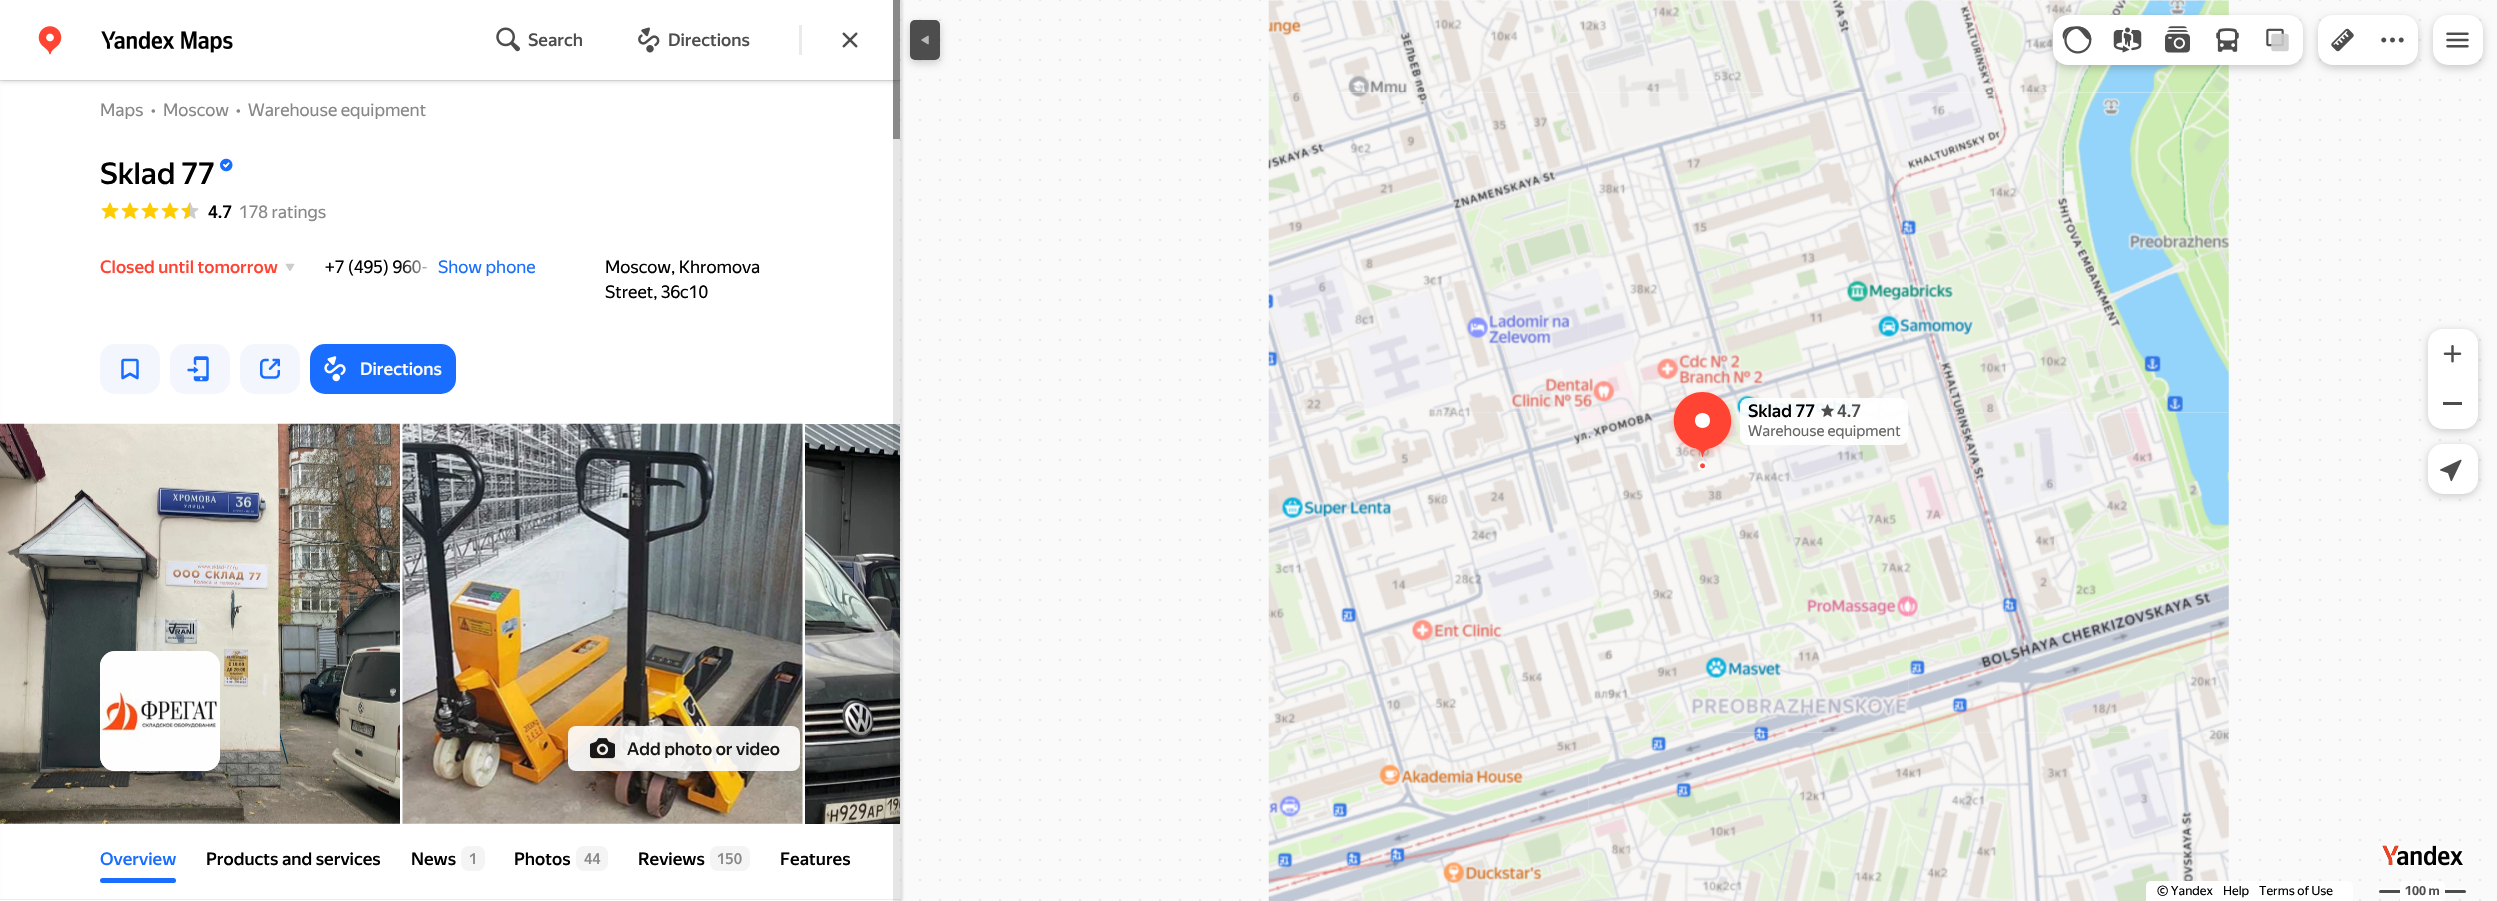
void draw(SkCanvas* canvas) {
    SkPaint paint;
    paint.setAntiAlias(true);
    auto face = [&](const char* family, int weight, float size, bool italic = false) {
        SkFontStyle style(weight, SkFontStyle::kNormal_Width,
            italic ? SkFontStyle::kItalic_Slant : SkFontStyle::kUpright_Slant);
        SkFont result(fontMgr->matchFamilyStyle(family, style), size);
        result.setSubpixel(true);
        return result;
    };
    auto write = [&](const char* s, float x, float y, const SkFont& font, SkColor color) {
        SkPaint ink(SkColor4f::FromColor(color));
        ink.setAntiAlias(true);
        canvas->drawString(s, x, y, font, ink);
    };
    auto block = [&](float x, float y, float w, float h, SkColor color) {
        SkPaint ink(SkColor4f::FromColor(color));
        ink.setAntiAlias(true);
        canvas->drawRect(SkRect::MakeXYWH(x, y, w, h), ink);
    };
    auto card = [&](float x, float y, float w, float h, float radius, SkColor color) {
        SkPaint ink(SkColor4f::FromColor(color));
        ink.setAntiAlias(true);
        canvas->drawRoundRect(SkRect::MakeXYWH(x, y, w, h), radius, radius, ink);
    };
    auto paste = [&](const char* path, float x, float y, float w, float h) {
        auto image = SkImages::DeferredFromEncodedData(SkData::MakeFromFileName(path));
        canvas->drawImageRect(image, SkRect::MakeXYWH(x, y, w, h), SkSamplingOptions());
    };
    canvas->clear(SK_ColorWHITE);
    paste("pic1.png", 900, 0, 1597, 901);
    paint.setColor(SkColorSetARGB(26, 0, 0, 0));
    paint.setMaskFilter(SkMaskFilter::MakeBlur(kNormal_SkBlurStyle, 1));
    canvas->drawRect(SkRect::MakeXYWH(3, 0, 900, 901), paint);
    paint.setMaskFilter(nullptr);
    block(2, 81, 898, 820, SK_ColorWHITE);
    block(0, 80, 900, 1, SkColorSetRGB(235, 235, 235));
    canvas->save();
    canvas->clipRect(SkRect::MakeXYWH(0, 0, 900, 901));
    paint.setColor(SkColorSetARGB(51, 0, 0, 0));
    paint.setMaskFilter(SkMaskFilter::MakeBlur(kNormal_SkBlurStyle, 2.5f));
    canvas->drawRect(SkRect::MakeXYWH(0, 76, 900, 5), paint);
    paint.setMaskFilter(nullptr);
    canvas->restore();
    paint.setMaskFilter(SkMaskFilter::MakeBlur(kNormal_SkBlurStyle, 4));
    canvas->drawRoundRect(SkRect::MakeXYWH(910, 23, 30, 40), 5, 5, paint);
    paint.setMaskFilter(nullptr);
    block(0, 0, 900, 80, SK_ColorWHITE);
    paste("pic2.png", 38, 26, 24, 29);
    paste("pic3.png", 101, 31, 132, 22);
    paste("pic4.png", 496, 27, 24, 25);
    auto kFont1 = face("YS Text", 500, 17.5f);
    write("Search", 528, 46, kFont1, SkColorSetRGB(77, 77, 77));
    paste("pic5.png", 638, 27, 22, 26);
    write("Directions", 668, 46, kFont1, SkColorSetRGB(77, 77, 77));
    block(799, 25, 3, 30, SkColorSetRGB(235, 235, 235));
    paste("pic6.png", 842, 32, 16, 16);
    auto kFont2 = face("YS Text", 400, 17.5f);
    write("Maps", 100, 116, kFont2, SkColorSetRGB(135, 135, 135));
    write("•", 151, 116, kFont2, SkColorSetRGB(135, 135, 135));
    write("Moscow", 163, 116, kFont2, SkColorSetRGB(135, 135, 135));
    write("•", 236, 116, kFont2, SkColorSetRGB(135, 135, 135));
    write("Warehouse equipment", 248, 116, kFont2, SkColorSetRGB(135, 135, 135));
    auto kFont3 = face("YS Text", 500, 30);
    write("Sklad 77", 100, 184, kFont3, SK_ColorBLACK);
    paste("pic7.png", 220, 158, 13, 14);
    paste("pic8.png", 101, 202, 18, 17);
    paste("pic8.png", 121, 202, 18, 17);
    paste("pic8.png", 141, 202, 18, 17);
    paste("pic8.png", 161, 202, 18, 17);
    paste("pic9.png", 181, 202, 18, 17);
    write("4.7", 208, 218, kFont1, SK_ColorBLACK);
    write("178 ratings", 239, 218, kFont2, SkColorSetRGB(135, 135, 135));
    write("Closed until tomorrow", 100, 273, kFont1, SkColorSetRGB(255, 68, 51));
    paste("pic10.png", 285, 263, 10, 8);
    write("+7 (495) 960-", 325, 273, kFont2, SK_ColorBLACK);
    {
        const SkColor colors[] = {SkColorSetARGB(0, 255, 255, 255), SK_ColorWHITE};
        const float stops[] = {0, 1};
        const SkPoint ends[] = {{398, 266}, {438, 266}};
        paint.setShader(SkGradientShader::MakeLinear(ends, colors, stops, 2, SkTileMode::kClamp));
        paint.setAlpha(255);
    }
    canvas->drawRect(SkRect::MakeXYWH(399, 260, 28, 14), paint);
    write("Show phone", 438, 273, kFont2, SkColorSetRGB(25, 109, 255));
    write("Moscow, Khromova", 605, 273, kFont2, SK_ColorBLACK);
    write("Street, 36с10", 605, 298, kFont2, SK_ColorBLACK);
    card(100, 344, 60, 50, 15, SkColorSetRGB(243, 246, 252));
    paste("pic11.png", 121, 358, 18, 22);
    card(170, 344, 60, 50, 15, SkColorSetRGB(243, 246, 252));
    paste("pic12.png", 187, 356, 22, 26);
    card(240, 344, 60, 50, 15, SkColorSetRGB(243, 246, 252));
    paste("pic13.png", 260, 358, 20, 21);
    card(310, 344, 146, 50, 15, SkColorSetRGB(25, 109, 255));
    paste("pic14.png", 324, 356, 22, 26);
    write("Directions", 360, 375, kFont1, SK_ColorWHITE);
    paste("pic15.png", 0, 423, 400, 401);
    paste("pic16.png", 402, 423, 401, 401);
    paste("pic17.png", 805, 424, 95, 400);
    card(100, 651, 120, 120, 15, SK_ColorWHITE);
    paste("pic18.png", 100, 651, 120, 121);
    card(568, 726, 232, 45, 8, SkColorSetARGB(230, 255, 255, 255));
    paste("pic19.png", 590, 738, 25, 21);
    write("Add photo or video", 627, 755, kFont1, SkColorSetRGB(24, 24, 24));
    write("Overview", 100, 865, kFont1, SkColorSetRGB(25, 109, 255));
    write("Products and services", 206, 865, kFont1, SK_ColorBLACK);
    write("News", 411, 865, kFont1, SK_ColorBLACK);
    card(461, 846, 24, 25, 8, SkColorSetRGB(244, 244, 244));
    auto kFont4 = face("YS Text", 500, 15);
    write("1", 469, 864, kFont4, SkColorSetRGB(135, 135, 135));
    write("Photos", 514, 865, kFont1, SK_ColorBLACK);
    card(576, 846, 32, 25, 8, SkColorSetRGB(244, 244, 244));
    write("44", 584, 864, kFont4, SkColorSetRGB(135, 135, 135));
    write("Reviews", 638, 865, kFont1, SK_ColorBLACK);
    card(710, 846, 40, 25, 8, SkColorSetRGB(244, 244, 244));
    write("150", 717, 864, kFont4, SkColorSetRGB(135, 135, 135));
    write("Features", 780, 865, kFont1, SK_ColorBLACK);
    card(100, 878, 76, 5, 2.5f, SkColorSetRGB(25, 109, 255));
    block(0, 899, 900, 1, SkColorSetRGB(235, 235, 235));
    block(893, 0, 7, 901, SkColorSetARGB(26, 0, 0, 0));
    block(893, 0, 7, 139, SkColorSetARGB(102, 0, 0, 0));
    card(910, 20, 30, 40, 5, SkColorSetRGB(77, 77, 77));
    paste("pic20.png", 921, 35, 8, 10);
    paste("pic32.png", 1268, 0, 321, 93);
    paste("pic33.png", 1588, 0, 321, 93);
    paste("pic34.png", 1908, 0, 321, 93);
    paint.setShader(nullptr);
    paint.setColor(SkColorSetARGB(51, 0, 0, 0));
    paint.setMaskFilter(SkMaskFilter::MakeBlur(kNormal_SkBlurStyle, 4));
    canvas->drawRoundRect(SkRect::MakeXYWH(2053, 18, 250, 50), 15, 15, paint);
    paint.setMaskFilter(nullptr);
    paint.setColor(SK_ColorWHITE);
    canvas->drawPath(SkPathBuilder().moveTo(2068, 15).lineTo(2103, 15).lineTo(2103, 65).lineTo(2068, 65).cubicTo(2059.5f, 65, 2053, 58.5f, 2053, 50).lineTo(2053, 30).cubicTo(2053, 21.5f, 2059.5f, 15, 2068, 15).close().detach(), paint);
    paste("pic21.png", 2062, 26, 30, 28);
    block(2103, 15, 150, 50, SK_ColorWHITE);
    paste("pic22.png", 2113, 27, 29, 26);
    canvas->drawPath(SkPathBuilder().moveTo(2253, 15).lineTo(2288, 15).cubicTo(2296.5f, 15, 2303, 21.5f, 2303, 30).lineTo(2303, 50).cubicTo(2303, 58.5f, 2296.5f, 65, 2288, 65).lineTo(2253, 65).close().detach(), paint);
    paste("pic23.png", 2266, 28, 23, 24);
    paste("pic24.png", 2165, 26, 25, 27);
    paste("pic25.png", 2216, 28, 23, 24);
    paint.setColor(SkColorSetARGB(51, 0, 0, 0));
    paint.setMaskFilter(SkMaskFilter::MakeBlur(kNormal_SkBlurStyle, 4));
    canvas->drawRoundRect(SkRect::MakeXYWH(2318, 18, 100, 50), 15, 15, paint);
    paint.setMaskFilter(nullptr);
    paint.setColor(SK_ColorWHITE);
    canvas->drawPath(SkPathBuilder().moveTo(2333, 15).lineTo(2368, 15).lineTo(2368, 65).lineTo(2333, 65).cubicTo(2324.5f, 65, 2318, 58.5f, 2318, 50).lineTo(2318, 30).cubicTo(2318, 21.5f, 2324.5f, 15, 2333, 15).close().detach(), paint);
    paste("pic26.png", 2331, 28, 23, 24);
    canvas->drawPath(SkPathBuilder().moveTo(2368, 15).lineTo(2403, 15).cubicTo(2411.5f, 15, 2418, 21.5f, 2418, 30).lineTo(2418, 50).cubicTo(2418, 58.5f, 2411.5f, 65, 2403, 65).lineTo(2368, 65).close().detach(), paint);
    paste("pic27.png", 2381, 37, 23, 6);
    paint.setColor(SkColorSetARGB(51, 0, 0, 0));
    paint.setMaskFilter(SkMaskFilter::MakeBlur(kNormal_SkBlurStyle, 4));
    canvas->drawRoundRect(SkRect::MakeXYWH(2433, 18, 50, 50), 15, 15, paint);
    paint.setMaskFilter(nullptr);
    card(2433, 15, 50, 50, 15, SK_ColorWHITE);
    paste("pic28.png", 2446, 32, 23, 16);
    paint.setMaskFilter(SkMaskFilter::MakeBlur(kNormal_SkBlurStyle, 4));
    canvas->drawRoundRect(SkRect::MakeXYWH(2428, 331, 50, 100), 15, 15, paint);
    paint.setMaskFilter(nullptr);
    paint.setColor(SK_ColorWHITE);
    canvas->drawPath(SkPathBuilder().moveTo(2443, 329).lineTo(2463, 329).cubicTo(2471.5f, 329, 2478, 335.5f, 2478, 344).lineTo(2478, 379).lineTo(2428, 379).lineTo(2428, 344).cubicTo(2428, 335.5f, 2434.5f, 329, 2443, 329).close().detach(), paint);
    paste("pic29.png", 2443, 345, 19, 18);
    canvas->drawPath(SkPathBuilder().moveTo(2428, 379).lineTo(2478, 379).lineTo(2478, 414).cubicTo(2478, 422.5f, 2471.5f, 429, 2463, 429).lineTo(2443, 429).cubicTo(2434.5f, 429, 2428, 422.5f, 2428, 414).close().detach(), paint);
    block(2443, 402, 19, 3, SkColorSetRGB(77, 77, 77));
    paint.setColor(SkColorSetARGB(51, 0, 0, 0));
    paint.setMaskFilter(SkMaskFilter::MakeBlur(kNormal_SkBlurStyle, 4));
    canvas->drawRoundRect(SkRect::MakeXYWH(2428, 446, 50, 50), 15, 15, paint);
    paint.setMaskFilter(nullptr);
    card(2428, 444, 50, 50, 15, SK_ColorWHITE);
    paste("pic30.png", 2440, 459, 22, 23);
    paste("pic31.png", 2382, 845, 81, 21);
    paste("pic35.png", 1268, 92, 321, 321);
    paste("pic36.png", 1588, 92, 321, 321);
    paste("pic37.png", 1908, 92, 321, 321);
    paste("pic38.png", 1268, 412, 321, 321);
    paste("pic39.png", 1588, 412, 321, 321);
    paste("pic40.png", 1908, 412, 321, 321);
    paste("pic41.png", 1268, 732, 321, 169);
    paste("pic42.png", 1588, 732, 321, 169);
    paste("pic43.png", 1908, 732, 321, 169);
    paint.setColor(SK_ColorWHITE);
    canvas->drawPath(SkPathBuilder().moveTo(2151, 881).lineTo(2348, 881).cubicTo(2351, 881, 2353, 883, 2353, 886).lineTo(2353, 901).lineTo(2146, 901).lineTo(2146, 886).cubicTo(2146, 883, 2148, 881, 2151, 881).close().detach(), paint);
    auto kFont5 = face("YS Text", 400, 12.5f);
    write("© Yandex", 2157, 895, kFont5, SK_ColorBLACK);
    write("Help", 2223, 895, kFont5, SK_ColorBLACK);
    write("Terms of Use", 2259, 895, kFont5, SK_ColorBLACK);
    card(2376, 888, 93, 7, 3.5f, SkColorSetRGB(253, 253, 253));
    card(2379, 890, 87, 3, 1.5f, SkColorSetRGB(77, 77, 77));
    canvas->drawPath(SkPathBuilder().moveTo(2405, 881).lineTo(2440, 881).cubicTo(2443, 881, 2445, 883, 2445, 886).lineTo(2445, 901).lineTo(2400, 901).lineTo(2400, 886).cubicTo(2400, 883, 2402, 881, 2405, 881).close().detach(), paint);
    auto kFont6 = face("YS Text", 700, 12.5f);
    write("100 m", 2405, 895, kFont6, SkColorSetRGB(77, 77, 77));
    paste("pic44.png", 1669, 390, 67, 81);
    canvas->drawPath(SkPathBuilder(SkPathFillType::kEvenOdd).moveTo(1702.5f, 428).cubicTo(1712.5f, 428, 1712.5f, 413, 1702.5f, 413).cubicTo(1692.5f, 413, 1692.5f, 428, 1702.5f, 428).close().detach(), paint);
    card(1740, 398, 168, 47, 8, SkColorSetARGB(230, 255, 255, 255));
    write("Sklad 77", 1748, 417, kFont1, SK_ColorBLACK);
    paste("pic45.png", 1821, 404, 13, 13);
    write("4.7", 1837, 417, kFont1, SkColorSetRGB(77, 77, 77));
    auto kFont7 = face("YS Text", 400, 15);
    write("Warehouse equipment", 1748, 436, kFont7, SkColorSetRGB(102, 102, 102));
}
